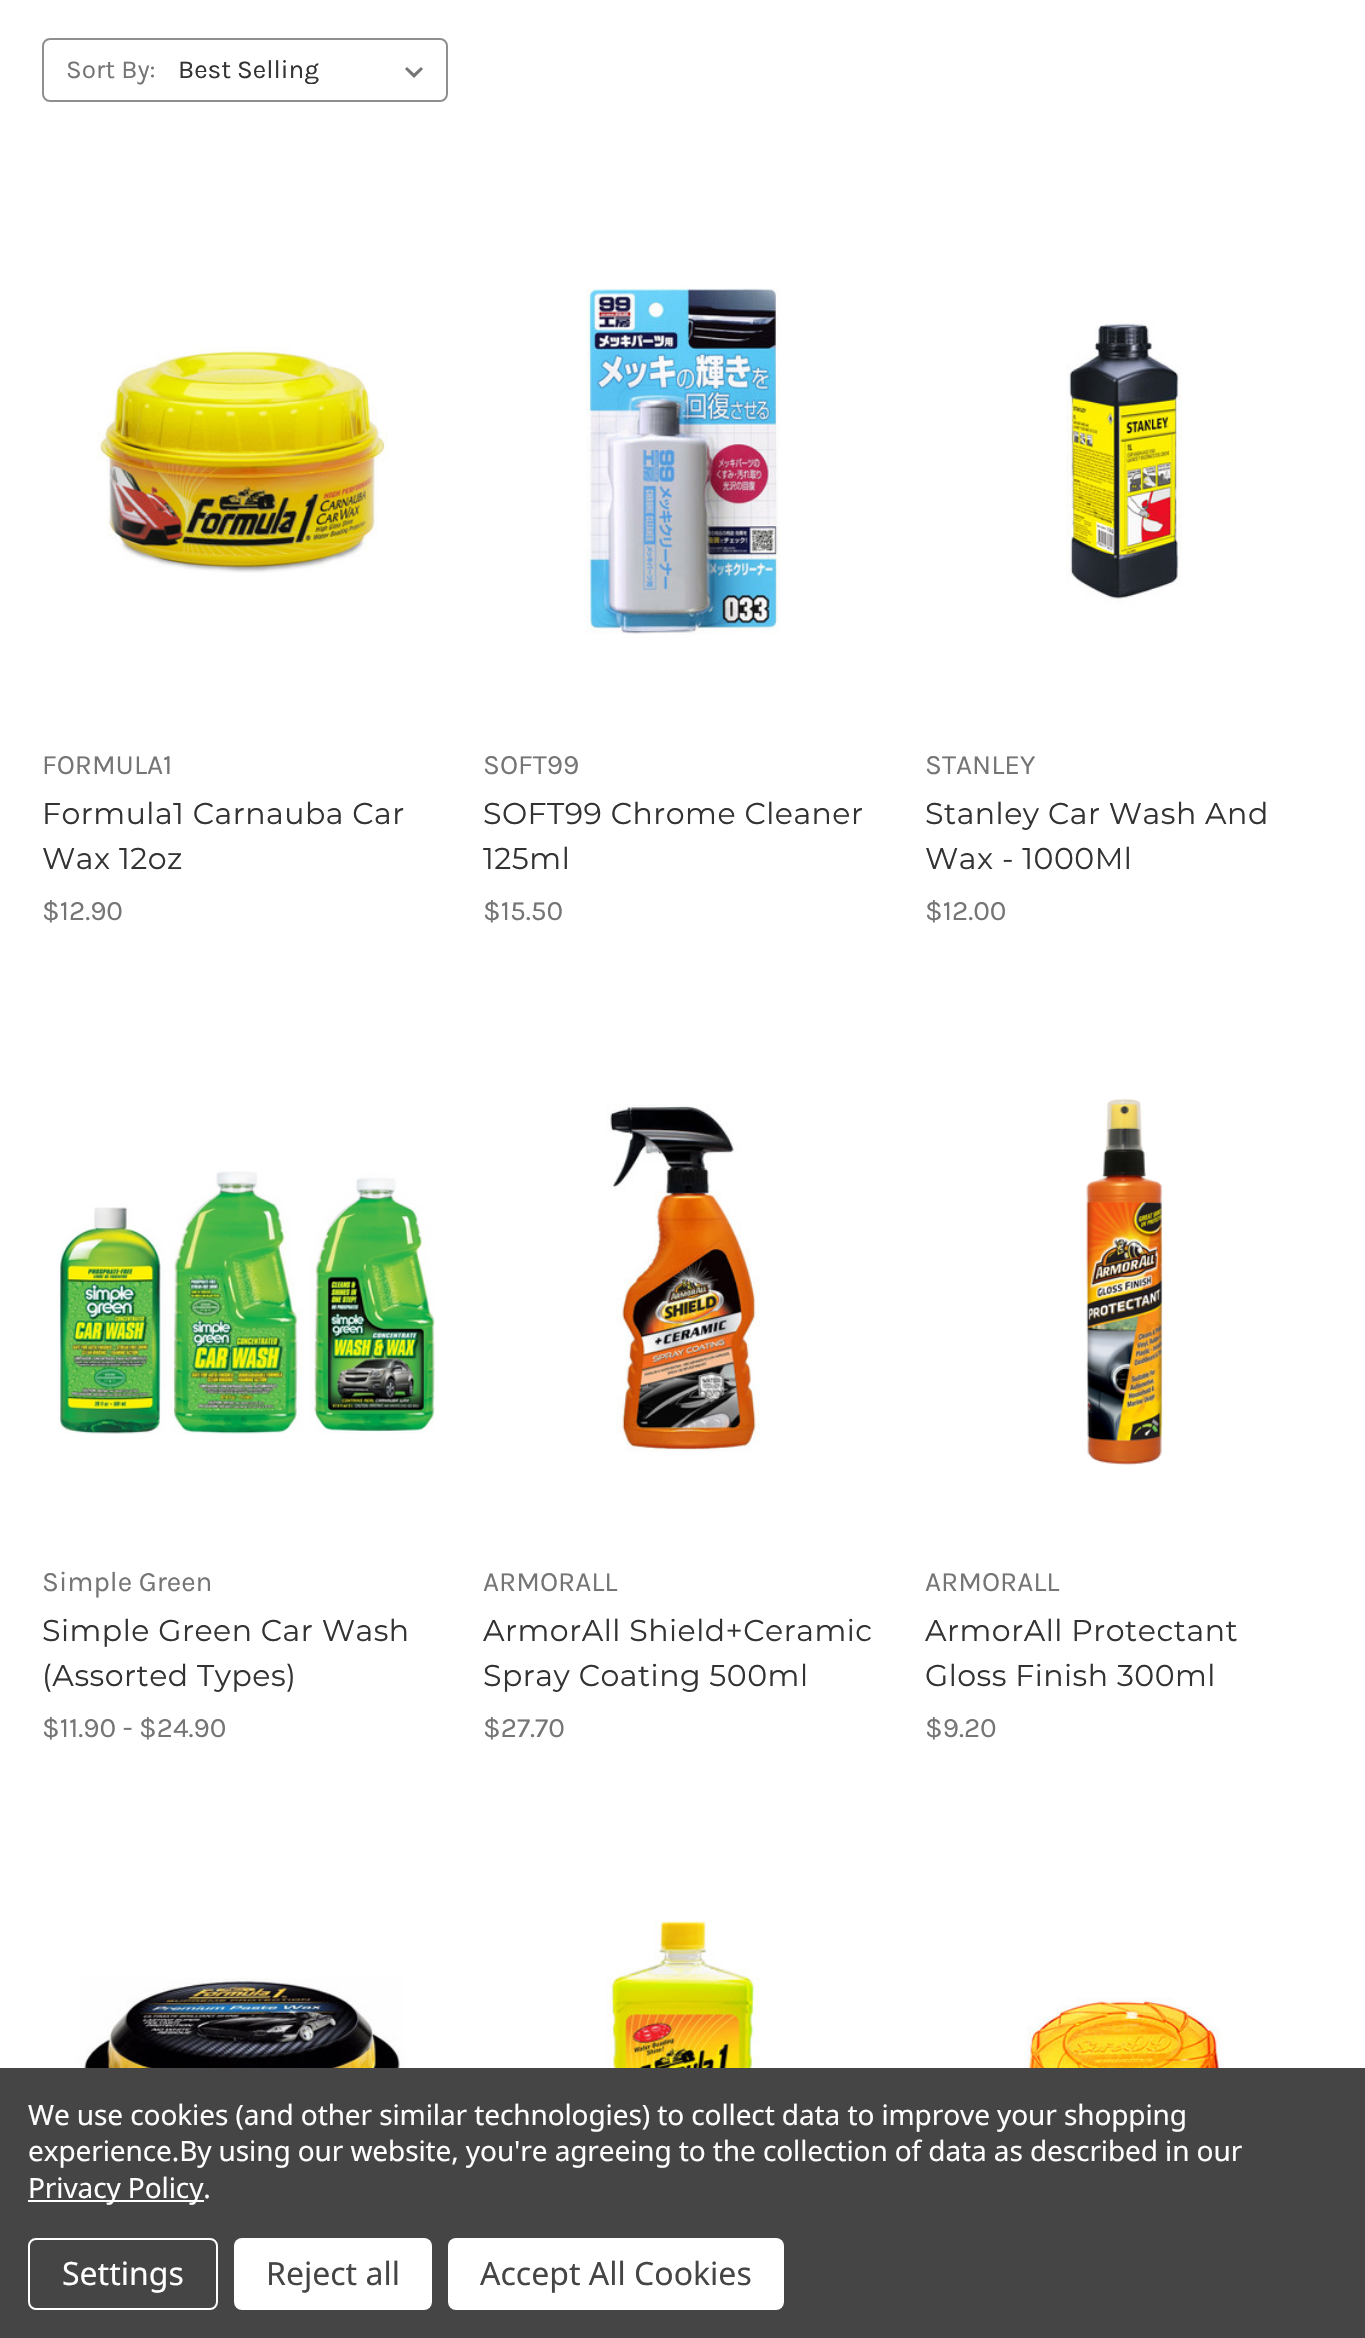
void draw(SkCanvas* canvas) {
    SkPaint paint;
    paint.setAntiAlias(true);
    auto face = [&](const char* family, int weight, float size, bool italic = false) {
        SkFontStyle style(weight, SkFontStyle::kNormal_Width,
            italic ? SkFontStyle::kItalic_Slant : SkFontStyle::kUpright_Slant);
        SkFont result(fontMgr->matchFamilyStyle(family, style), size);
        result.setSubpixel(true);
        return result;
    };
    auto write = [&](const char* s, float x, float y, const SkFont& font, SkColor color) {
        SkPaint ink(SkColor4f::FromColor(color));
        ink.setAntiAlias(true);
        canvas->drawString(s, x, y, font, ink);
    };
    auto writeSpaced = [&](const char* s, float x, float y, const SkFont& font, const SkPaint& ink, float letter, float word) {
        std::vector<SkGlyphID> glyphs(font.countText(s, strlen(s), SkTextEncoding::kUTF8));
        std::vector<float> xs(glyphs.size());
        font.textToGlyphs(s, strlen(s), SkTextEncoding::kUTF8, glyphs);
        font.getXPos(glyphs, xs, x);
        float extra = 0;
        for (size_t i = 0; i < glyphs.size(); i++) {
            xs[i] += extra;
            extra += letter + word * (glyphs[i] == font.unicharToGlyph(' '));
        }
        canvas->drawTextBlob(SkTextBlob::MakeFromPosHGlyphs(glyphs, xs, y, font), 0, 0, ink);
    };
    auto block = [&](float x, float y, float w, float h, SkColor color) {
        SkPaint ink(SkColor4f::FromColor(color));
        ink.setAntiAlias(true);
        canvas->drawRect(SkRect::MakeXYWH(x, y, w, h), ink);
    };
    auto card = [&](float x, float y, float w, float h, float radius, SkColor color) {
        SkPaint ink(SkColor4f::FromColor(color));
        ink.setAntiAlias(true);
        canvas->drawRoundRect(SkRect::MakeXYWH(x, y, w, h), radius, radius, ink);
    };
    auto paste = [&](const char* path, float x, float y, float w, float h) {
        auto image = SkImages::DeferredFromEncodedData(SkData::MakeFromFileName(path));
        canvas->drawImageRect(image, SkRect::MakeXYWH(x, y, w, h), SkSamplingOptions());
    };
    canvas->clear(SK_ColorWHITE);
    paint.setStyle(SkPaint::kStroke_Style);
    paint.setStrokeWidth(2);
    paint.setColor(SkColorSetRGB(143, 143, 143));
    canvas->drawRoundRect(SkRect::MakeXYWH(43, 39, 404, 62), 7, 7, paint);
    auto kFont1 = face("Karla", 400, 26);
    write("Sort By:", 66, 78, kFont1, SkColorSetRGB(117, 117, 117));
    card(172, 40, 274, 60, 8, SK_ColorWHITE);
    paint.setStyle(SkPaint::kFill_Style);
    paint.setColor(SkColorSetRGB(117, 117, 117));
    canvas->drawPath(SkPathBuilder().moveTo(421, 67).lineTo(414, 73.5f).lineTo(407, 67).lineTo(405, 69).lineTo(414, 78).lineTo(423, 69).close().detach(), paint);
    canvas->save();
    canvas->clipRect(SkRect::MakeXYWH(178, 56, 212, 28));
    write("Best Selling", 178, 78, kFont1, SkColorSetRGB(51, 51, 51));
    canvas->restore();
    paste("pic1.png", 97, 346, 291, 227);
    auto kFont2 = face("Karla", 400, 28);
    write("FORMULA1", 42, 774, kFont2, SkColorSetRGB(117, 117, 117));
    auto kFont3 = face("Montserrat", 400, 30);
    paint.setColor(SkColorSetRGB(51, 51, 51));
    writeSpaced("Formula1 Carnauba Car", 42, 824, kFont3, paint, 0.5f, 0);
    writeSpaced("Wax 12oz", 42, 869, kFont3, paint, 0.5f, 0);
    write("$12.90", 42, 920, kFont2, SkColorSetRGB(117, 117, 117));
    paste("pic2.png", 586, 287, 194, 348);
    write("SOFT99", 483, 774, kFont2, SkColorSetRGB(117, 117, 117));
    writeSpaced("SOFT99 Chrome Cleaner", 483, 824, kFont3, paint, 0.5f, 0);
    writeSpaced("125ml", 483, 869, kFont3, paint, 0.5f, 0);
    write("$15.50", 483, 920, kFont2, SkColorSetRGB(117, 117, 117));
    paste("pic3.png", 1066, 319, 116, 287);
    write("STANLEY", 925, 774, kFont2, SkColorSetRGB(117, 117, 117));
    writeSpaced("Stanley Car Wash And", 925, 824, kFont3, paint, 0.5f, 0);
    writeSpaced("Wax - 1000Ml", 925, 869, kFont3, paint, 0.5f, 0);
    write("$12.00", 925, 920, kFont2, SkColorSetRGB(117, 117, 117));
    paste("pic4.png", 58, 1171, 377, 263);
    write("Simple Green", 42, 1591, kFont2, SkColorSetRGB(117, 117, 117));
    writeSpaced("Simple Green Car Wash", 42, 1641, kFont3, paint, 0.5f, 0);
    writeSpaced("(Assorted Types)", 42, 1686, kFont3, paint, 0.5f, 0);
    write("$11.90 - $24.90", 42, 1737, kFont2, SkColorSetRGB(117, 117, 117));
    paste("pic5.png", 606, 1104, 154, 349);
    write("ARMORALL", 483, 1591, kFont2, SkColorSetRGB(117, 117, 117));
    writeSpaced("ArmorAll Shield+Ceramic", 483, 1641, kFont3, paint, 0.5f, 0);
    writeSpaced("Spray Coating 500ml", 483, 1686, kFont3, paint, 0.5f, 0);
    write("$27.70", 483, 1737, kFont2, SkColorSetRGB(117, 117, 117));
    paste("pic6.png", 1086, 1098, 77, 367);
    write("ARMORALL", 925, 1591, kFont2, SkColorSetRGB(117, 117, 117));
    writeSpaced("ArmorAll Protectant", 925, 1641, kFont3, paint, 0.5f, 0);
    writeSpaced("Gloss Finish 300ml", 925, 1686, kFont3, paint, 0.5f, 0);
    write("$9.20", 925, 1737, kFont2, SkColorSetRGB(117, 117, 117));
    paste("pic7.png", 77, 1978, 330, 90);
    paste("pic8.png", 606, 1919, 154, 149);
    paste("pic9.png", 1017, 1997, 214, 71);
    block(0, 2068, 1365, 270, SkColorSetRGB(69, 69, 69));
    auto kFont4 = face("Noto Sans", 400, 28);
    paint.setColor(SK_ColorWHITE);
    writeSpaced("We use cookies (and other similar technologies) to collect data to improve your shopping", 28, 2125, kFont4, paint, -0.1f, 0);
    writeSpaced("experience.By using our website, you're agreeing to the collection of data as described in our", 28, 2161, kFont4, paint, -0.1f, 0);
    block(28, 2200, 176, 2, SK_ColorWHITE);
    writeSpaced("Privacy Policy.", 28, 2198, kFont4, paint, -0.1f, 0);
    paint.setStyle(SkPaint::kStroke_Style);
    canvas->drawRoundRect(SkRect::MakeXYWH(29, 2239, 188, 70), 7, 7, paint);
    auto kFont5 = face("Noto Sans", 400, 32);
    write("Settings", 62, 2285, kFont5, SK_ColorWHITE);
    card(234, 2238, 198, 72, 8, SK_ColorWHITE);
    write("Reject all", 266, 2285, kFont5, SkColorSetRGB(69, 69, 69));
    card(448, 2238, 336, 72, 8, SK_ColorWHITE);
    write("Accept All Cookies", 480, 2285, kFont5, SkColorSetRGB(69, 69, 69));
}
